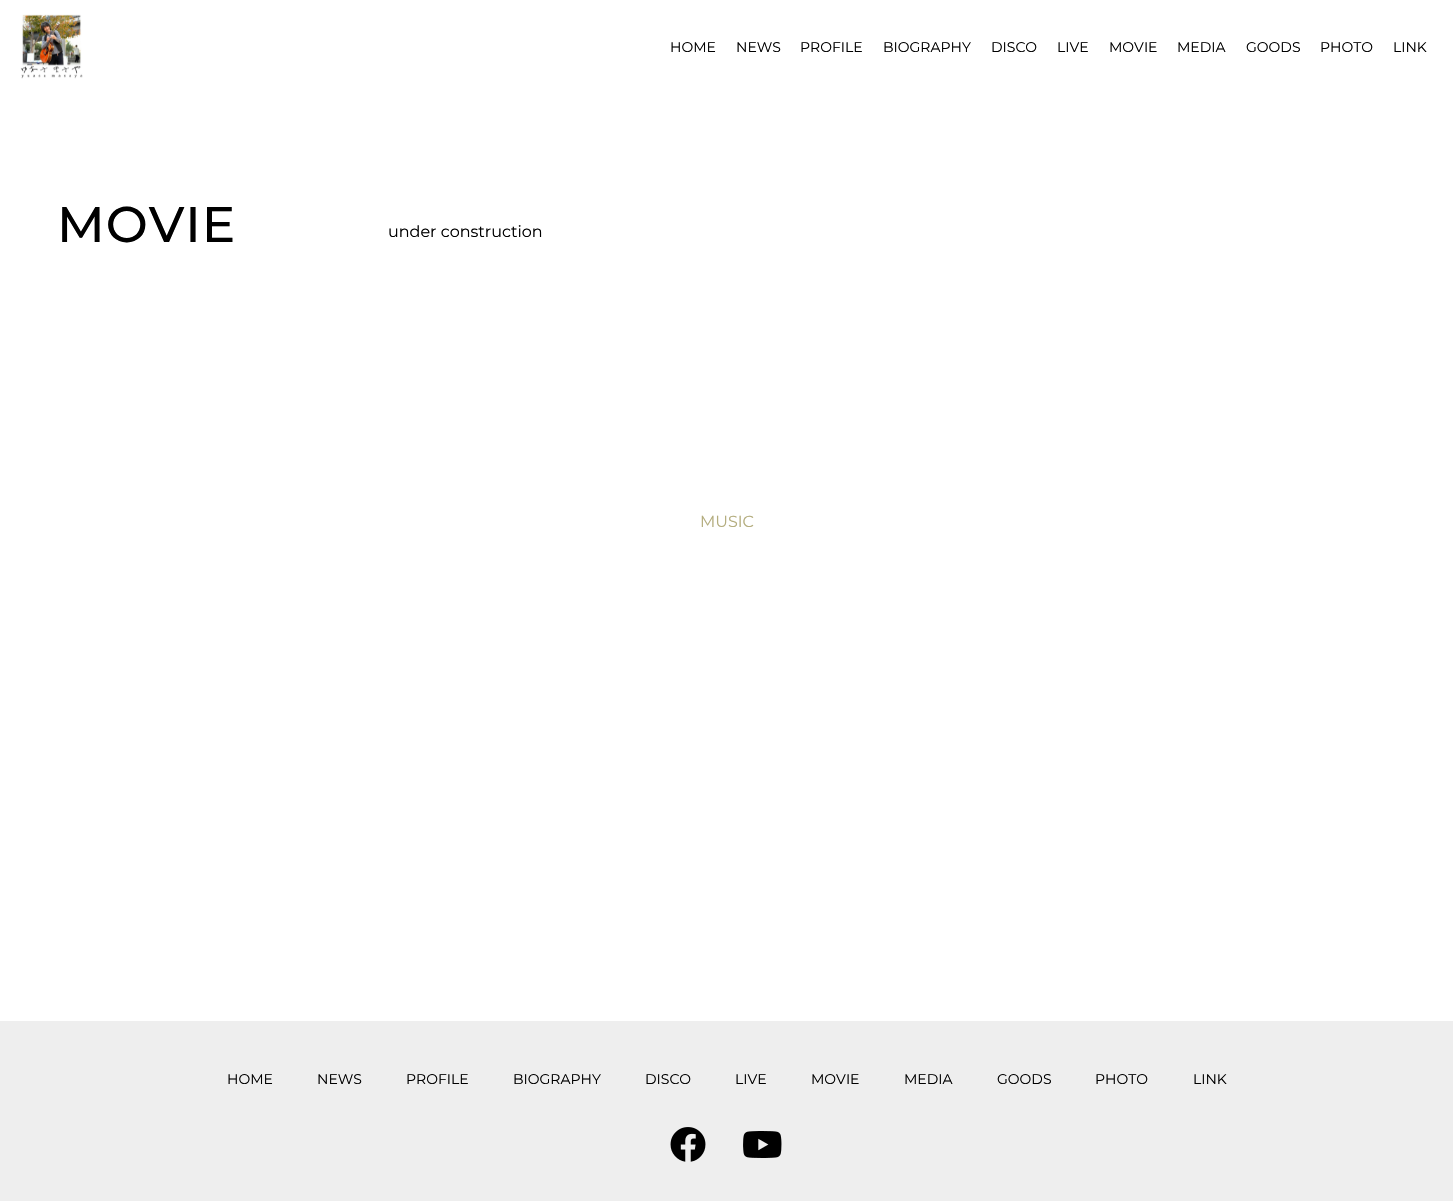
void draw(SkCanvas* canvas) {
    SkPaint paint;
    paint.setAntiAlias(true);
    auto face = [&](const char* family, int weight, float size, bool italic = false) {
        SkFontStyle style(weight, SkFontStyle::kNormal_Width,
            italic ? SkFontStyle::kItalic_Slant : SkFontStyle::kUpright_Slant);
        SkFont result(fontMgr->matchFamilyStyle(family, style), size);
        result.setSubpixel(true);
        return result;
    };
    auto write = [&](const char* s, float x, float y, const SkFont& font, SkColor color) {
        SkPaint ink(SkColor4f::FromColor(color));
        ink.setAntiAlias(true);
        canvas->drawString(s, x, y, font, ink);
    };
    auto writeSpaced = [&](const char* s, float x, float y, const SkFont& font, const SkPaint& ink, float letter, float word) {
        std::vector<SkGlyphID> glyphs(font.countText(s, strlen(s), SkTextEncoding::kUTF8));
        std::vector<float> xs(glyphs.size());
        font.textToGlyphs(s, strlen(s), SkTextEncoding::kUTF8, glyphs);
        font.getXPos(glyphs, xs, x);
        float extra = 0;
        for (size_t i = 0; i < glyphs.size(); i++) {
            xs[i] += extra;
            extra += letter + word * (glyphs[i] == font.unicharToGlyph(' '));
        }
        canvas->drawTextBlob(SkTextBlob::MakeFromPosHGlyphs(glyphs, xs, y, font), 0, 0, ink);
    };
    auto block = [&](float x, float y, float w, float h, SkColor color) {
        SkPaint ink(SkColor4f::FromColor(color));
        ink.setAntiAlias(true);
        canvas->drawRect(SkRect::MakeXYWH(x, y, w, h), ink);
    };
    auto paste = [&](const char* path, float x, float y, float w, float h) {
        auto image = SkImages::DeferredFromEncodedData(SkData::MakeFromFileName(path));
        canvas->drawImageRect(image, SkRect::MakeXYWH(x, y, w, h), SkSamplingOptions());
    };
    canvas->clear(SK_ColorWHITE);
    paste("pic1.png", 20, 14, 63, 65);
    auto kFont1 = face("Montserrat", 400, 14);
    write("HOME", 670, 52, kFont1, SK_ColorBLACK);
    write("NEWS", 736, 52, kFont1, SK_ColorBLACK);
    write("PROFILE", 800, 52, kFont1, SK_ColorBLACK);
    write("BIOGRAPHY", 883, 52, kFont1, SK_ColorBLACK);
    write("DISCO", 991, 52, kFont1, SK_ColorBLACK);
    write("LIVE", 1057, 52, kFont1, SK_ColorBLACK);
    write("MOVIE", 1109, 52, kFont1, SK_ColorBLACK);
    write("MEDIA", 1177, 52, kFont1, SK_ColorBLACK);
    write("GOODS", 1246, 52, kFont1, SK_ColorBLACK);
    write("PHOTO", 1320, 52, kFont1, SK_ColorBLACK);
    write("LINK", 1393, 52, kFont1, SK_ColorBLACK);
    auto kFont2 = face("Montserrat", 500, 50);
    paint.setColor(SK_ColorBLACK);
    writeSpaced("MOVIE", 57, 242, kFont2, paint, 1, 0);
    auto kFont3 = face("Montserrat", 400, 16);
    write("under construction", 388, 237, kFont3, SK_ColorBLACK);
    write("MUSIC", 700, 527, kFont3, SkColorSetRGB(180, 173, 126));
    block(0, 1021, 1453, 180, SkColorSetRGB(238, 238, 238));
    write("HOME", 227, 1084, kFont1, SK_ColorBLACK);
    write("NEWS", 317, 1084, kFont1, SK_ColorBLACK);
    write("PROFILE", 406, 1084, kFont1, SK_ColorBLACK);
    write("BIOGRAPHY", 513, 1084, kFont1, SK_ColorBLACK);
    write("DISCO", 645, 1084, kFont1, SK_ColorBLACK);
    write("LIVE", 735, 1084, kFont1, SK_ColorBLACK);
    write("MOVIE", 811, 1084, kFont1, SK_ColorBLACK);
    write("MEDIA", 904, 1084, kFont1, SK_ColorBLACK);
    write("GOODS", 997, 1084, kFont1, SK_ColorBLACK);
    write("PHOTO", 1095, 1084, kFont1, SK_ColorBLACK);
    write("LINK", 1193, 1084, kFont1, SK_ColorBLACK);
    paste("pic2.png", 670, 1127, 36, 35);
    paste("pic3.png", 743, 1131, 39, 27);
}
